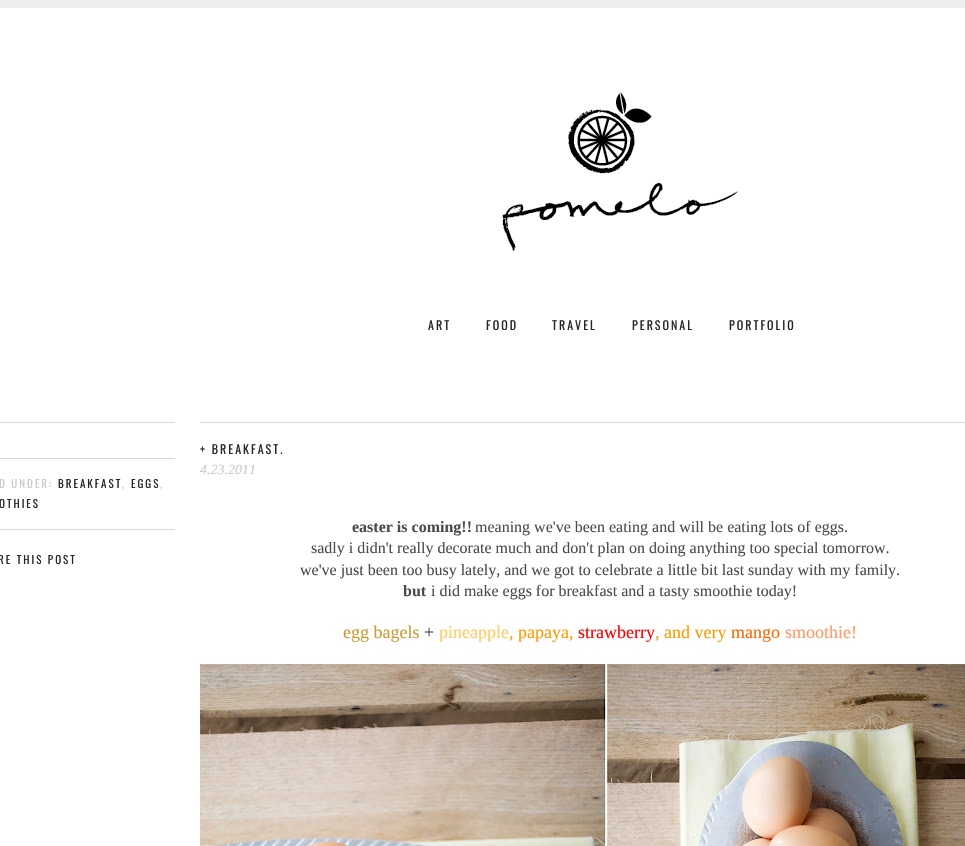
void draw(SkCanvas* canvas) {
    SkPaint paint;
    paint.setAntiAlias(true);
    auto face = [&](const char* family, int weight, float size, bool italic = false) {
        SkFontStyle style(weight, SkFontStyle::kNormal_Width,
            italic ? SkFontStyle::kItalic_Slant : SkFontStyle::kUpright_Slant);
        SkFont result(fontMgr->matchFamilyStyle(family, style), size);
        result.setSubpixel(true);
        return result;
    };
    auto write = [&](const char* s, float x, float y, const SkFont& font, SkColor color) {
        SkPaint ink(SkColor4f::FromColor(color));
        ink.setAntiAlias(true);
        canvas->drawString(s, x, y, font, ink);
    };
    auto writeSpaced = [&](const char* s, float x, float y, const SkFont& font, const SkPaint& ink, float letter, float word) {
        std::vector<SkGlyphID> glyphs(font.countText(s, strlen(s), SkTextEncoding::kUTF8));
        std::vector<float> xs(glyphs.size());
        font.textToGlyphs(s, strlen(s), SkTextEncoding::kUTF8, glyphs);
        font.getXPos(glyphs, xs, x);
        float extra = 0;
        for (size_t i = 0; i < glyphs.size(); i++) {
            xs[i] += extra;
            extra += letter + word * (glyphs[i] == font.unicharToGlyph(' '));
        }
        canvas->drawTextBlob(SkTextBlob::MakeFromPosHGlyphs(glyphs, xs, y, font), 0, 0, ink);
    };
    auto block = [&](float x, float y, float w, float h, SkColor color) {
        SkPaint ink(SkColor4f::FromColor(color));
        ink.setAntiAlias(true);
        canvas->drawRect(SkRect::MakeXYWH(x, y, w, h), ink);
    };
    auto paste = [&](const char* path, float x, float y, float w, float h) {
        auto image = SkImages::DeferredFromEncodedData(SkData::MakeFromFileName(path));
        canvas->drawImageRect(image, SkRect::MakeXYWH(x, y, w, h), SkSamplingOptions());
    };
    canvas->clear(SK_ColorWHITE);
    block(0, 0, 965, 8, SkColorSetRGB(238, 238, 238));
    paste("pic1.png", 502, 92, 236, 159);
    auto kFont1 = face("Oswald", 400, 12);
    paint.setColor(SkColorSetRGB(38, 38, 38));
    writeSpaced("ART", 428, 330, kFont1, paint, 2, 0);
    writeSpaced("FOOD", 486, 330, kFont1, paint, 2, 0);
    writeSpaced("TRAVEL", 552, 330, kFont1, paint, 2, 0);
    writeSpaced("PERSONAL", 632, 330, kFont1, paint, 2, 0);
    writeSpaced("PORTFOLIO", 729, 330, kFont1, paint, 2, 0);
    block(200, 422, 765, 1, SkColorSetRGB(216, 216, 216));
    writeSpaced("+ BREAKFAST.", 200, 454, kFont1, paint, 2, 0);
    auto kFont2 = face("Liberation Serif", 400, 14, true);
    write("4.23.2011", 200, 474, kFont2, SkColorSetRGB(206, 203, 203));
    block(0, 422, 175, 1, SkColorSetRGB(216, 216, 216));
    block(0, 458, 175, 1, SkColorSetRGB(216, 216, 216));
    auto kFont3 = face("Oswald", 400, 11);
    paint.setColor(SkColorSetRGB(206, 203, 203));
    writeSpaced("D UNDER:", -1, 488, kFont3, paint, 2, 0);
    paint.setColor(SkColorSetRGB(38, 38, 38));
    writeSpaced("BREAKFAST", 58, 488, kFont3, paint, 2, 0);
    paint.setColor(SkColorSetRGB(206, 203, 203));
    writeSpaced(",", 122, 488, kFont3, paint, 2, 0);
    paint.setColor(SkColorSetRGB(38, 38, 38));
    writeSpaced("EGGS", 131, 488, kFont3, paint, 2, 0);
    paint.setColor(SkColorSetRGB(206, 203, 203));
    writeSpaced(",", 160, 488, kFont3, paint, 2, 0);
    paint.setColor(SkColorSetRGB(38, 38, 38));
    writeSpaced("OTHIES", -1, 508, kFont3, paint, 2, 0);
    block(0, 529, 175, 1, SkColorSetRGB(216, 216, 216));
    writeSpaced("RE THIS POST", -2, 564, kFont3, paint, 2, 0);
    auto kFont4 = face("Liberation Serif", 700, 16);
    write("easter is coming!!", 352, 532, kFont4, SkColorSetRGB(76, 76, 76));
    auto kFont5 = face("Liberation Serif", 400, 16);
    write("meaning we've been eating and will be eating lots of eggs.", 475, 532, kFont5, SkColorSetRGB(76, 76, 76));
    write("sadly i didn't really decorate much and don't plan on doing anything too special tomorrow.", 311, 553, kFont5, SkColorSetRGB(76, 76, 76));
    write("we've just been too busy lately, and we got to celebrate a little bit last sunday with my family.", 300, 575, kFont5, SkColorSetRGB(76, 76, 76));
    write("but", 403, 596, kFont4, SkColorSetRGB(76, 76, 76));
    write("i did make eggs for breakfast and a tasty smoothie today!", 431, 596, kFont5, SkColorSetRGB(76, 76, 76));
    auto kFont6 = face("Liberation Serif", 400, 18);
    write("egg bagels", 343, 638, kFont6, SkColorSetRGB(204, 153, 51));
    write("+", 424, 638, kFont6, SkColorSetRGB(76, 76, 76));
    write("pineapple", 439, 638, kFont6, SkColorSetRGB(255, 204, 102));
    write(", papaya,", 509, 638, kFont6, SkColorSetRGB(255, 153, 0));
    write("strawberry", 578, 638, kFont6, SkColorSetRGB(255, 0, 0));
    write(", and very", 655, 638, kFont6, SkColorSetRGB(255, 153, 0));
    write("mango", 731, 638, kFont6, SkColorSetRGB(255, 102, 0));
    write("smoothie!", 785, 638, kFont6, SkColorSetRGB(255, 153, 102));
    paste("pic2.png", 200, 664, 765, 182);
}
